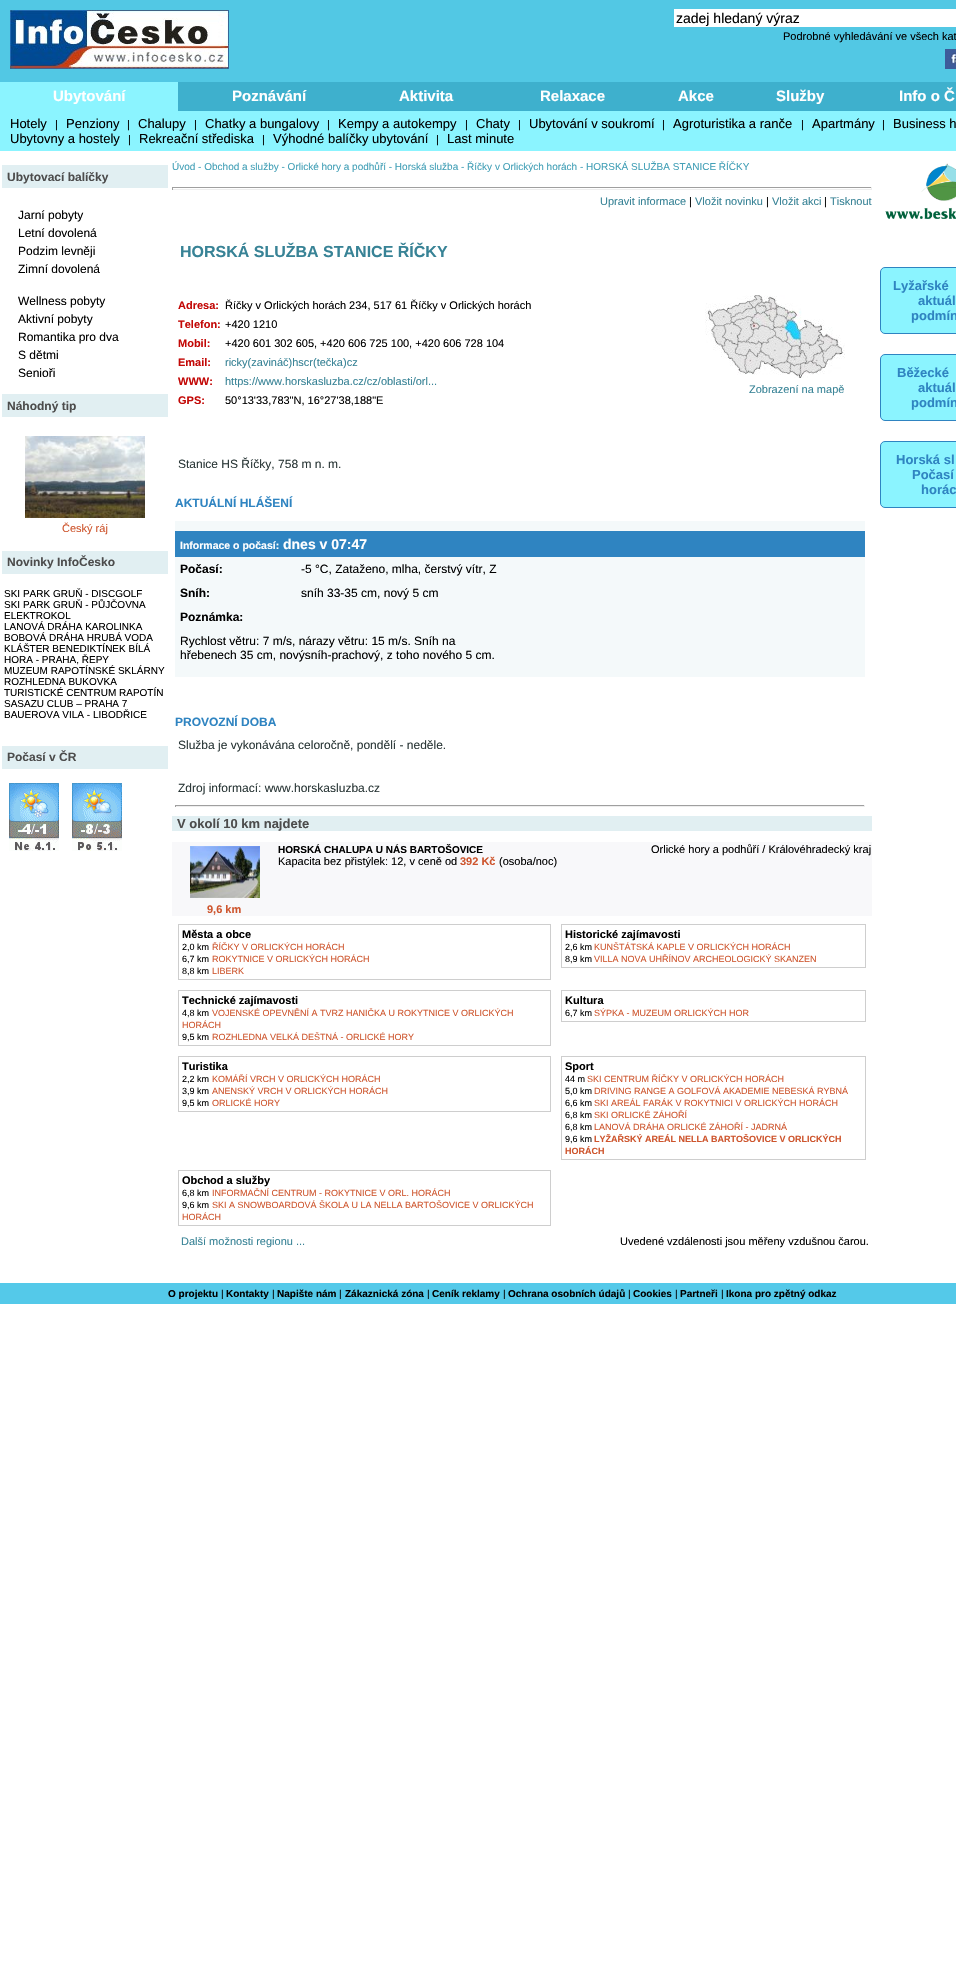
void draw(SkCanvas* canvas) {
    SkPaint paint;
    paint.setAntiAlias(true);
    auto face = [&](const char* family, int weight, float size, bool italic = false) {
        SkFontStyle style(weight, SkFontStyle::kNormal_Width,
            italic ? SkFontStyle::kItalic_Slant : SkFontStyle::kUpright_Slant);
        SkFont result(fontMgr->matchFamilyStyle(family, style), size);
        result.setSubpixel(true);
        return result;
    };
    auto write = [&](const char* s, float x, float y, const SkFont& font, SkColor color) {
        SkPaint ink(SkColor4f::FromColor(color));
        ink.setAntiAlias(true);
        canvas->drawString(s, x, y, font, ink);
    };
    auto block = [&](float x, float y, float w, float h, SkColor color) {
        SkPaint ink(SkColor4f::FromColor(color));
        ink.setAntiAlias(true);
        canvas->drawRect(SkRect::MakeXYWH(x, y, w, h), ink);
    };
    auto paste = [&](const char* path, float x, float y, float w, float h) {
        auto image = SkImages::DeferredFromEncodedData(SkData::MakeFromFileName(path));
        canvas->drawImageRect(image, SkRect::MakeXYWH(x, y, w, h), SkSamplingOptions());
    };
    canvas->clear(SK_ColorWHITE);
    block(0, 0, 956, 82, SkColorSetRGB(82, 200, 228));
    paste("pic1.png", 10, 10, 219, 59);
    block(674, 9, 282, 18, SK_ColorWHITE);
    auto kFont1 = face("Liberation Sans", 400, 14);
    write("zadej hledaný výraz", 676, 23, kFont1, SK_ColorBLACK);
    auto kFont2 = face("Liberation Sans", 400, 11);
    write("Podrobné vyhledávání ve všech kat", 783, 40, kFont2, SK_ColorBLACK);
    paste("pic2.png", 945, 49, 11, 20);
    block(0, 82, 178, 29, SkColorSetRGB(139, 244, 255));
    auto kFont3 = face("Liberation Sans", 700, 15);
    write("Ubytování", 53, 101, kFont3, SK_ColorWHITE);
    block(178, 82, 778, 29, SkColorSetRGB(62, 176, 205));
    write("Poznávání", 232, 101, kFont3, SK_ColorWHITE);
    write("Aktivita", 399, 101, kFont3, SK_ColorWHITE);
    write("Relaxace", 540, 101, kFont3, SK_ColorWHITE);
    write("Akce", 678, 101, kFont3, SK_ColorWHITE);
    write("Služby", 776, 101, kFont3, SK_ColorWHITE);
    write("Info o Č", 899, 101, kFont3, SK_ColorWHITE);
    block(0, 111, 956, 40, SkColorSetRGB(139, 244, 255));
    auto kFont4 = face("Liberation Sans", 400, 13);
    write("Hotely", 10, 128, kFont4, SK_ColorBLACK);
    write("|", 55, 128, kFont2, SK_ColorBLACK);
    write("Penziony", 66, 128, kFont4, SK_ColorBLACK);
    write("|", 127, 128, kFont2, SK_ColorBLACK);
    write("Chalupy", 138, 128, kFont4, SK_ColorBLACK);
    write("|", 194, 128, kFont2, SK_ColorBLACK);
    write("Chatky a bungalovy", 205, 128, kFont4, SK_ColorBLACK);
    write("|", 327, 128, kFont2, SK_ColorBLACK);
    write("Kempy a autokempy", 338, 128, kFont4, SK_ColorBLACK);
    write("|", 465, 128, kFont2, SK_ColorBLACK);
    write("Chaty", 476, 128, kFont4, SK_ColorBLACK);
    write("|", 518, 128, kFont2, SK_ColorBLACK);
    write("Ubytování v soukromí", 529, 128, kFont4, SK_ColorBLACK);
    write("|", 662, 128, kFont2, SK_ColorBLACK);
    write("Agroturistika a ranče", 673, 128, kFont4, SK_ColorBLACK);
    write("|", 801, 128, kFont2, SK_ColorBLACK);
    write("Apartmány", 812, 128, kFont4, SK_ColorBLACK);
    write("|", 882, 128, kFont2, SK_ColorBLACK);
    write("Business h", 893, 128, kFont4, SK_ColorBLACK);
    write("Ubytovny a hostely", 10, 143, kFont4, SK_ColorBLACK);
    write("|", 128, 143, kFont2, SK_ColorBLACK);
    write("Rekreační střediska", 139, 143, kFont4, SK_ColorBLACK);
    write("|", 262, 143, kFont2, SK_ColorBLACK);
    write("Výhodné balíčky ubytování", 273, 143, kFont4, SK_ColorBLACK);
    write("|", 436, 143, kFont2, SK_ColorBLACK);
    write("Last minute", 447, 143, kFont4, SK_ColorBLACK);
    block(2, 165, 166, 23, SkColorSetRGB(225, 239, 242));
    auto kFont5 = face("Liberation Sans", 700, 12);
    write("Ubytovací balíčky", 7, 181, kFont5, SkColorSetRGB(76, 76, 76));
    auto kFont6 = face("Liberation Sans", 400, 12);
    write("Jarní pobyty", 18, 219, kFont6, SK_ColorBLACK);
    write("Letní dovolená", 18, 237, kFont6, SK_ColorBLACK);
    write("Podzim levněji", 18, 255, kFont6, SK_ColorBLACK);
    write("Zimní dovolená", 18, 273, kFont6, SK_ColorBLACK);
    write("Wellness pobyty", 18, 305, kFont6, SK_ColorBLACK);
    write("Aktivní pobyty", 18, 323, kFont6, SK_ColorBLACK);
    write("Romantika pro dva", 18, 341, kFont6, SK_ColorBLACK);
    write("S dětmi", 18, 359, kFont6, SK_ColorBLACK);
    write("Senioři", 18, 377, kFont6, SK_ColorBLACK);
    block(2, 394, 166, 23, SkColorSetRGB(225, 239, 242));
    write("Náhodný tip", 7, 410, kFont5, SkColorSetRGB(76, 76, 76));
    paste("pic3.png", 25, 436, 120, 82);
    write("Český ráj", 62, 532, kFont2, SkColorSetRGB(206, 85, 45));
    block(2, 551, 166, 23, SkColorSetRGB(225, 239, 242));
    write("Novinky InfoČesko", 7, 566, kFont5, SkColorSetRGB(76, 76, 76));
    auto kFont7 = face("Liberation Sans", 400, 10);
    write("SKI PARK GRUŇ - DISCGOLF", 4, 597, kFont7, SK_ColorBLACK);
    write("SKI PARK GRUŇ - PŮJČOVNA", 4, 608, kFont7, SK_ColorBLACK);
    write("ELEKTROKOL", 4, 619, kFont7, SK_ColorBLACK);
    write("LANOVÁ DRÁHA KAROLINKA", 4, 630, kFont7, SK_ColorBLACK);
    write("BOBOVÁ DRÁHA HRUBÁ VODA", 4, 641, kFont7, SK_ColorBLACK);
    write("KLÁŠTER BENEDIKTÍNEK BÍLÁ", 4, 652, kFont7, SK_ColorBLACK);
    write("HORA - PRAHA, ŘEPY", 4, 663, kFont7, SK_ColorBLACK);
    write("MUZEUM RAPOTÍNSKÉ SKLÁRNY", 4, 674, kFont7, SK_ColorBLACK);
    write("ROZHLEDNA BUKOVKA", 4, 685, kFont7, SK_ColorBLACK);
    write("TURISTICKÉ CENTRUM RAPOTÍN", 4, 696, kFont7, SK_ColorBLACK);
    write("SASAZU CLUB – PRAHA 7", 4, 707, kFont7, SK_ColorBLACK);
    write("BAUEROVA VILA - LIBODŘICE", 4, 718, kFont7, SK_ColorBLACK);
    block(2, 746, 166, 23, SkColorSetRGB(225, 239, 242));
    write("Počasí v ČR", 7, 761, kFont5, SkColorSetRGB(76, 76, 76));
    paste("pic4.png", 9, 783, 50, 68);
    paste("pic5.png", 72, 783, 50, 68);
    write("Úvod - Obchod a služby - Orlické hory a podhůří - Horská služba - Říčky v Orlických horách - HORSKÁ SLUŽBA STANICE ŘÍČKY", 172, 170, kFont7, SkColorSetRGB(67, 160, 183));
    block(172, 187, 700, 1, SkColorSetRGB(159, 159, 159));
    block(871, 187, 1, 3, SkColorSetRGB(238, 238, 238));
    block(172, 189, 700, 1, SkColorSetRGB(238, 238, 238));
    block(172, 187, 1, 3, SkColorSetRGB(159, 159, 159));
    write("Upravit informace", 600, 205, kFont2, SkColorSetRGB(56, 131, 150));
    write("|", 689, 205, kFont2, SK_ColorBLACK);
    write("Vložit novinku", 695, 205, kFont2, SkColorSetRGB(56, 131, 150));
    write("|", 766, 205, kFont2, SK_ColorBLACK);
    write("Vložit akci", 772, 205, kFont2, SkColorSetRGB(56, 131, 150));
    write("|", 824, 205, kFont2, SK_ColorBLACK);
    write("Tisknout", 830, 205, kFont2, SkColorSetRGB(56, 131, 150));
    auto kFont8 = face("Liberation Sans", 700, 16);
    write("HORSKÁ SLUŽBA STANICE ŘÍČKY", 180, 257, kFont8, SkColorSetRGB(56, 131, 150));
    auto kFont9 = face("Liberation Sans", 700, 11);
    write("Adresa:", 178, 309, kFont9, SkColorSetRGB(195, 8, 6));
    write("Říčky v Orlických horách 234, 517 61 Říčky v Orlických horách", 225, 309, kFont2, SK_ColorBLACK);
    write("Telefon:", 178, 328, kFont9, SkColorSetRGB(195, 8, 6));
    write("+420 1210", 225, 328, kFont2, SK_ColorBLACK);
    write("Mobil:", 178, 347, kFont9, SkColorSetRGB(195, 8, 6));
    write("+420 601 302 605, +420 606 725 100, +420 606 728 104", 225, 347, kFont2, SK_ColorBLACK);
    write("Email:", 178, 366, kFont9, SkColorSetRGB(195, 8, 6));
    write("ricky(zavináč)hscr(tečka)cz", 225, 366, kFont2, SkColorSetRGB(56, 131, 150));
    write("WWW:", 178, 385, kFont9, SkColorSetRGB(195, 8, 6));
    write("https://www.horskasluzba.cz/cz/oblasti/orl...", 225, 385, kFont2, SkColorSetRGB(56, 131, 150));
    write("GPS:", 178, 404, kFont9, SkColorSetRGB(195, 8, 6));
    write("50°13'33,783\"N, 16°27'38,188\"E", 225, 404, kFont2, SK_ColorBLACK);
    paste("pic6.png", 705, 295, 140, 83);
    write("Zobrazení na mapě", 749, 393, kFont2, SkColorSetRGB(56, 131, 150));
    write("Stanice HS Říčky, 758 m n. m.", 178, 468, kFont6, SkColorSetRGB(43, 56, 56));
    write("AKTUÁLNÍ HLÁŠENÍ", 175, 507, kFont5, SkColorSetRGB(47, 132, 193));
    block(175, 521, 690, 156, SkColorSetRGB(244, 249, 250));
    block(175, 531, 690, 26, SkColorSetRGB(47, 132, 193));
    auto kFont10 = face("Liberation Sans", 700, 10.5f);
    write("Informace o počasí:", 180, 549, kFont10, SK_ColorWHITE);
    auto kFont11 = face("Liberation Sans", 700, 14);
    write("dnes v 07:47", 283, 549, kFont11, SK_ColorWHITE);
    write("Počasí:", 180, 573, kFont5, SK_ColorBLACK);
    write("-5 °C, Zataženo, mlha, čerstvý vítr, Z", 301, 573, kFont6, SK_ColorBLACK);
    write("Sníh:", 180, 597, kFont5, SK_ColorBLACK);
    write("sníh 33-35 cm, nový 5 cm", 301, 597, kFont6, SK_ColorBLACK);
    write("Poznámka:", 180, 621, kFont5, SK_ColorBLACK);
    write("Rychlost větru: 7 m/s, nárazy větru: 15 m/s. Sníh na", 180, 645, kFont6, SK_ColorBLACK);
    write("hřebenech 35 cm, novýsníh-prachový, z toho nového 5 cm.", 180, 659, kFont6, SK_ColorBLACK);
    write("PROVOZNÍ DOBA", 175, 726, kFont5, SkColorSetRGB(47, 132, 193));
    write("Služba je vykonávána celoročně, pondělí - neděle.", 178, 749, kFont6, SkColorSetRGB(43, 56, 56));
    write("Zdroj informací: www.horskasluzba.cz", 178, 792, kFont6, SkColorSetRGB(43, 56, 56));
    block(175, 805, 690, 1, SkColorSetRGB(159, 159, 159));
    block(864, 805, 1, 2, SkColorSetRGB(238, 238, 238));
    block(175, 806, 690, 1, SkColorSetRGB(238, 238, 238));
    block(175, 805, 1, 2, SkColorSetRGB(159, 159, 159));
    block(172, 816, 700, 15, SkColorSetRGB(225, 239, 242));
    auto kFont12 = face("Liberation Sans", 700, 13);
    write("V okolí 10 km najdete", 177, 828, kFont12, SkColorSetRGB(76, 76, 76));
    block(172, 842, 700, 74, SkColorSetRGB(248, 248, 250));
    auto kFont13 = face("Liberation Sans", 700, 10);
    write("HORSKÁ CHALUPA U NÁS BARTOŠOVICE", 278, 853, kFont13, SK_ColorBLACK);
    write("Orlické hory a podhůří / Královéhradecký kraj", 651, 853, kFont2, SK_ColorBLACK);
    write("Kapacita bez přistýlek: 12, v ceně od", 278, 865, kFont2, SK_ColorBLACK);
    write("392 Kč", 460, 865, kFont9, SkColorSetRGB(206, 85, 45));
    write("(osoba/noc)", 499, 865, kFont2, SK_ColorBLACK);
    paste("pic7.png", 190, 846, 70, 52);
    write("9,6 km", 207, 913, kFont9, SkColorSetRGB(206, 85, 45));
    paint.setStyle(SkPaint::kStroke_Style);
    paint.setStrokeWidth(1);
    paint.setColor(SkColorSetRGB(206, 206, 206));
    canvas->drawRect(SkRect::MakeXYWH(178.5f, 924.5f, 372, 55), paint);
    write("Města a obce", 182, 938, kFont9, SK_ColorBLACK);
    auto kFont14 = face("Liberation Sans", 400, 9);
    write("2,0 km", 182, 950, kFont14, SK_ColorBLACK);
    write("ŘÍČKY V ORLICKÝCH HORÁCH", 212, 950, kFont14, SkColorSetRGB(206, 85, 45));
    write("6,7 km", 182, 962, kFont14, SK_ColorBLACK);
    write("ROKYTNICE V ORLICKÝCH HORÁCH", 212, 962, kFont14, SkColorSetRGB(206, 85, 45));
    write("8,8 km", 182, 974, kFont14, SK_ColorBLACK);
    write("LIBERK", 212, 974, kFont14, SkColorSetRGB(206, 85, 45));
    canvas->drawRect(SkRect::MakeXYWH(561.5f, 924.5f, 304, 43), paint);
    write("Historické zajímavosti", 565, 938, kFont9, SK_ColorBLACK);
    write("2,6 km", 565, 950, kFont14, SK_ColorBLACK);
    write("KUNŠTÁTSKÁ KAPLE V ORLICKÝCH HORÁCH", 594, 950, kFont14, SkColorSetRGB(206, 85, 45));
    write("8,9 km", 565, 962, kFont14, SK_ColorBLACK);
    write("VILLA NOVA UHŘÍNOV ARCHEOLOGICKÝ SKANZEN", 594, 962, kFont14, SkColorSetRGB(206, 85, 45));
    canvas->drawRect(SkRect::MakeXYWH(178.5f, 990.5f, 372, 55), paint);
    write("Technické zajímavosti", 182, 1004, kFont9, SK_ColorBLACK);
    write("4,8 km", 182, 1016, kFont14, SK_ColorBLACK);
    write("VOJENSKÉ OPEVNĚNÍ A TVRZ HANIČKA U ROKYTNICE V ORLICKÝCH", 212, 1016, kFont14, SkColorSetRGB(206, 85, 45));
    write("HORÁCH", 182, 1028, kFont14, SkColorSetRGB(206, 85, 45));
    write("9,5 km", 182, 1040, kFont14, SK_ColorBLACK);
    write("ROZHLEDNA VELKÁ DEŠTNÁ - ORLICKÉ HORY", 212, 1040, kFont14, SkColorSetRGB(206, 85, 45));
    canvas->drawRect(SkRect::MakeXYWH(561.5f, 990.5f, 304, 31), paint);
    write("Kultura", 565, 1004, kFont9, SK_ColorBLACK);
    write("6,7 km", 565, 1016, kFont14, SK_ColorBLACK);
    write("SÝPKA - MUZEUM ORLICKÝCH HOR", 594, 1016, kFont14, SkColorSetRGB(206, 85, 45));
    canvas->drawRect(SkRect::MakeXYWH(178.5f, 1056.5f, 372, 55), paint);
    write("Turistika", 182, 1070, kFont9, SK_ColorBLACK);
    write("2,2 km", 182, 1082, kFont14, SK_ColorBLACK);
    write("KOMÁŘÍ VRCH V ORLICKÝCH HORÁCH", 212, 1082, kFont14, SkColorSetRGB(206, 85, 45));
    write("3,9 km", 182, 1094, kFont14, SK_ColorBLACK);
    write("ANENSKÝ VRCH V ORLICKÝCH HORÁCH", 212, 1094, kFont14, SkColorSetRGB(206, 85, 45));
    write("9,5 km", 182, 1106, kFont14, SK_ColorBLACK);
    write("ORLICKÉ HORY", 212, 1106, kFont14, SkColorSetRGB(206, 85, 45));
    canvas->drawRect(SkRect::MakeXYWH(561.5f, 1056.5f, 304, 103), paint);
    write("Sport", 565, 1070, kFont9, SK_ColorBLACK);
    write("44 m", 565, 1082, kFont14, SK_ColorBLACK);
    write("SKI CENTRUM ŘÍČKY V ORLICKÝCH HORÁCH", 587, 1082, kFont14, SkColorSetRGB(206, 85, 45));
    write("5,0 km", 565, 1094, kFont14, SK_ColorBLACK);
    write("DRIVING RANGE A GOLFOVÁ AKADEMIE NEBESKÁ RYBNÁ", 594, 1094, kFont14, SkColorSetRGB(206, 85, 45));
    write("6,6 km", 565, 1106, kFont14, SK_ColorBLACK);
    write("SKI AREÁL FARÁK V ROKYTNICI V ORLICKÝCH HORÁCH", 594, 1106, kFont14, SkColorSetRGB(206, 85, 45));
    write("6,8 km", 565, 1118, kFont14, SK_ColorBLACK);
    write("SKI ORLICKÉ ZÁHOŘÍ", 594, 1118, kFont14, SkColorSetRGB(206, 85, 45));
    write("6,8 km", 565, 1130, kFont14, SK_ColorBLACK);
    write("LANOVÁ DRÁHA ORLICKÉ ZÁHOŘÍ - JADRNÁ", 594, 1130, kFont14, SkColorSetRGB(206, 85, 45));
    write("9,6 km", 565, 1142, kFont14, SK_ColorBLACK);
    auto kFont15 = face("Liberation Sans", 700, 9);
    write("LYŽAŘSKÝ AREÁL NELLA BARTOŠOVICE V ORLICKÝCH", 594, 1142, kFont15, SkColorSetRGB(206, 85, 45));
    write("HORÁCH", 565, 1154, kFont15, SkColorSetRGB(206, 85, 45));
    canvas->drawRect(SkRect::MakeXYWH(178.5f, 1170.5f, 372, 55), paint);
    write("Obchod a služby", 182, 1184, kFont9, SK_ColorBLACK);
    write("6,8 km", 182, 1196, kFont14, SK_ColorBLACK);
    write("INFORMAČNÍ CENTRUM - ROKYTNICE V ORL. HORÁCH", 212, 1196, kFont14, SkColorSetRGB(206, 85, 45));
    write("9,6 km", 182, 1208, kFont14, SK_ColorBLACK);
    write("SKI A SNOWBOARDOVÁ ŠKOLA U LA NELLA BARTOŠOVICE V ORLICKÝCH", 212, 1208, kFont14, SkColorSetRGB(206, 85, 45));
    write("HORÁCH", 182, 1220, kFont14, SkColorSetRGB(206, 85, 45));
    write("Další možnosti regionu ...", 181, 1245, kFont2, SkColorSetRGB(56, 131, 150));
    write("Uvedené vzdálenosti jsou měřeny vzdušnou čarou.", 620, 1245, kFont2, SK_ColorBLACK);
    paste("pic8.png", 885, 163, 71, 56);
    paint.setStyle(SkPaint::kFill_Style);
    paint.setColor(SkColorSetRGB(139, 244, 255));
    canvas->drawRoundRect(SkRect::MakeXYWH(880.5f, 267.5f, 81, 66), 4.5f, 4.5f, paint);
    paint.setStyle(SkPaint::kStroke_Style);
    paint.setColor(SkColorSetRGB(47, 132, 193));
    canvas->drawRoundRect(SkRect::MakeXYWH(880.5f, 267.5f, 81, 66), 4.5f, 4.5f, paint);
    write("Lyžařské", 893, 290, kFont12, SkColorSetRGB(47, 132, 193));
    write("aktuál", 918, 305, kFont12, SkColorSetRGB(47, 132, 193));
    write("podmín", 911, 320, kFont12, SkColorSetRGB(47, 132, 193));
    paint.setStyle(SkPaint::kFill_Style);
    paint.setColor(SkColorSetRGB(139, 244, 255));
    canvas->drawRoundRect(SkRect::MakeXYWH(880.5f, 354.5f, 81, 66), 4.5f, 4.5f, paint);
    paint.setStyle(SkPaint::kStroke_Style);
    paint.setColor(SkColorSetRGB(47, 132, 193));
    canvas->drawRoundRect(SkRect::MakeXYWH(880.5f, 354.5f, 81, 66), 4.5f, 4.5f, paint);
    write("Běžecké", 897, 377, kFont12, SkColorSetRGB(47, 132, 193));
    write("aktuál", 918, 392, kFont12, SkColorSetRGB(47, 132, 193));
    write("podmín", 911, 407, kFont12, SkColorSetRGB(47, 132, 193));
    paint.setStyle(SkPaint::kFill_Style);
    paint.setColor(SkColorSetRGB(139, 244, 255));
    canvas->drawRoundRect(SkRect::MakeXYWH(880.5f, 441.5f, 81, 66), 4.5f, 4.5f, paint);
    paint.setStyle(SkPaint::kStroke_Style);
    paint.setColor(SkColorSetRGB(47, 132, 193));
    canvas->drawRoundRect(SkRect::MakeXYWH(880.5f, 441.5f, 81, 66), 4.5f, 4.5f, paint);
    write("Horská sl", 896, 464, kFont12, SkColorSetRGB(47, 132, 193));
    write("Počasí", 912, 479, kFont12, SkColorSetRGB(47, 132, 193));
    write("horác", 921, 494, kFont12, SkColorSetRGB(47, 132, 193));
    block(0, 1283, 956, 21, SkColorSetRGB(84, 201, 233));
    write("O projektu", 168, 1297, kFont13, SK_ColorBLACK);
    write("|", 221, 1297, kFont7, SK_ColorBLACK);
    write("Kontakty", 226, 1297, kFont13, SK_ColorBLACK);
    write("|", 272, 1297, kFont7, SK_ColorBLACK);
    write("Napište nám", 277, 1297, kFont13, SK_ColorBLACK);
    write("|", 339, 1297, kFont7, SK_ColorBLACK);
    write("Zákaznická zóna", 345, 1297, kFont13, SK_ColorBLACK);
    write("|", 427, 1297, kFont7, SK_ColorBLACK);
    write("Ceník reklamy", 432, 1297, kFont13, SK_ColorBLACK);
    write("|", 503, 1297, kFont7, SK_ColorBLACK);
    write("Ochrana osobních údajů", 508, 1297, kFont13, SK_ColorBLACK);
    write("|", 628, 1297, kFont7, SK_ColorBLACK);
    write("Cookies", 633, 1297, kFont13, SK_ColorBLACK);
    write("|", 675, 1297, kFont7, SK_ColorBLACK);
    write("Partneři", 680, 1297, kFont13, SK_ColorBLACK);
    write("|", 721, 1297, kFont7, SK_ColorBLACK);
    write("Ikona pro zpětný odkaz", 726, 1297, kFont13, SK_ColorBLACK);
}
